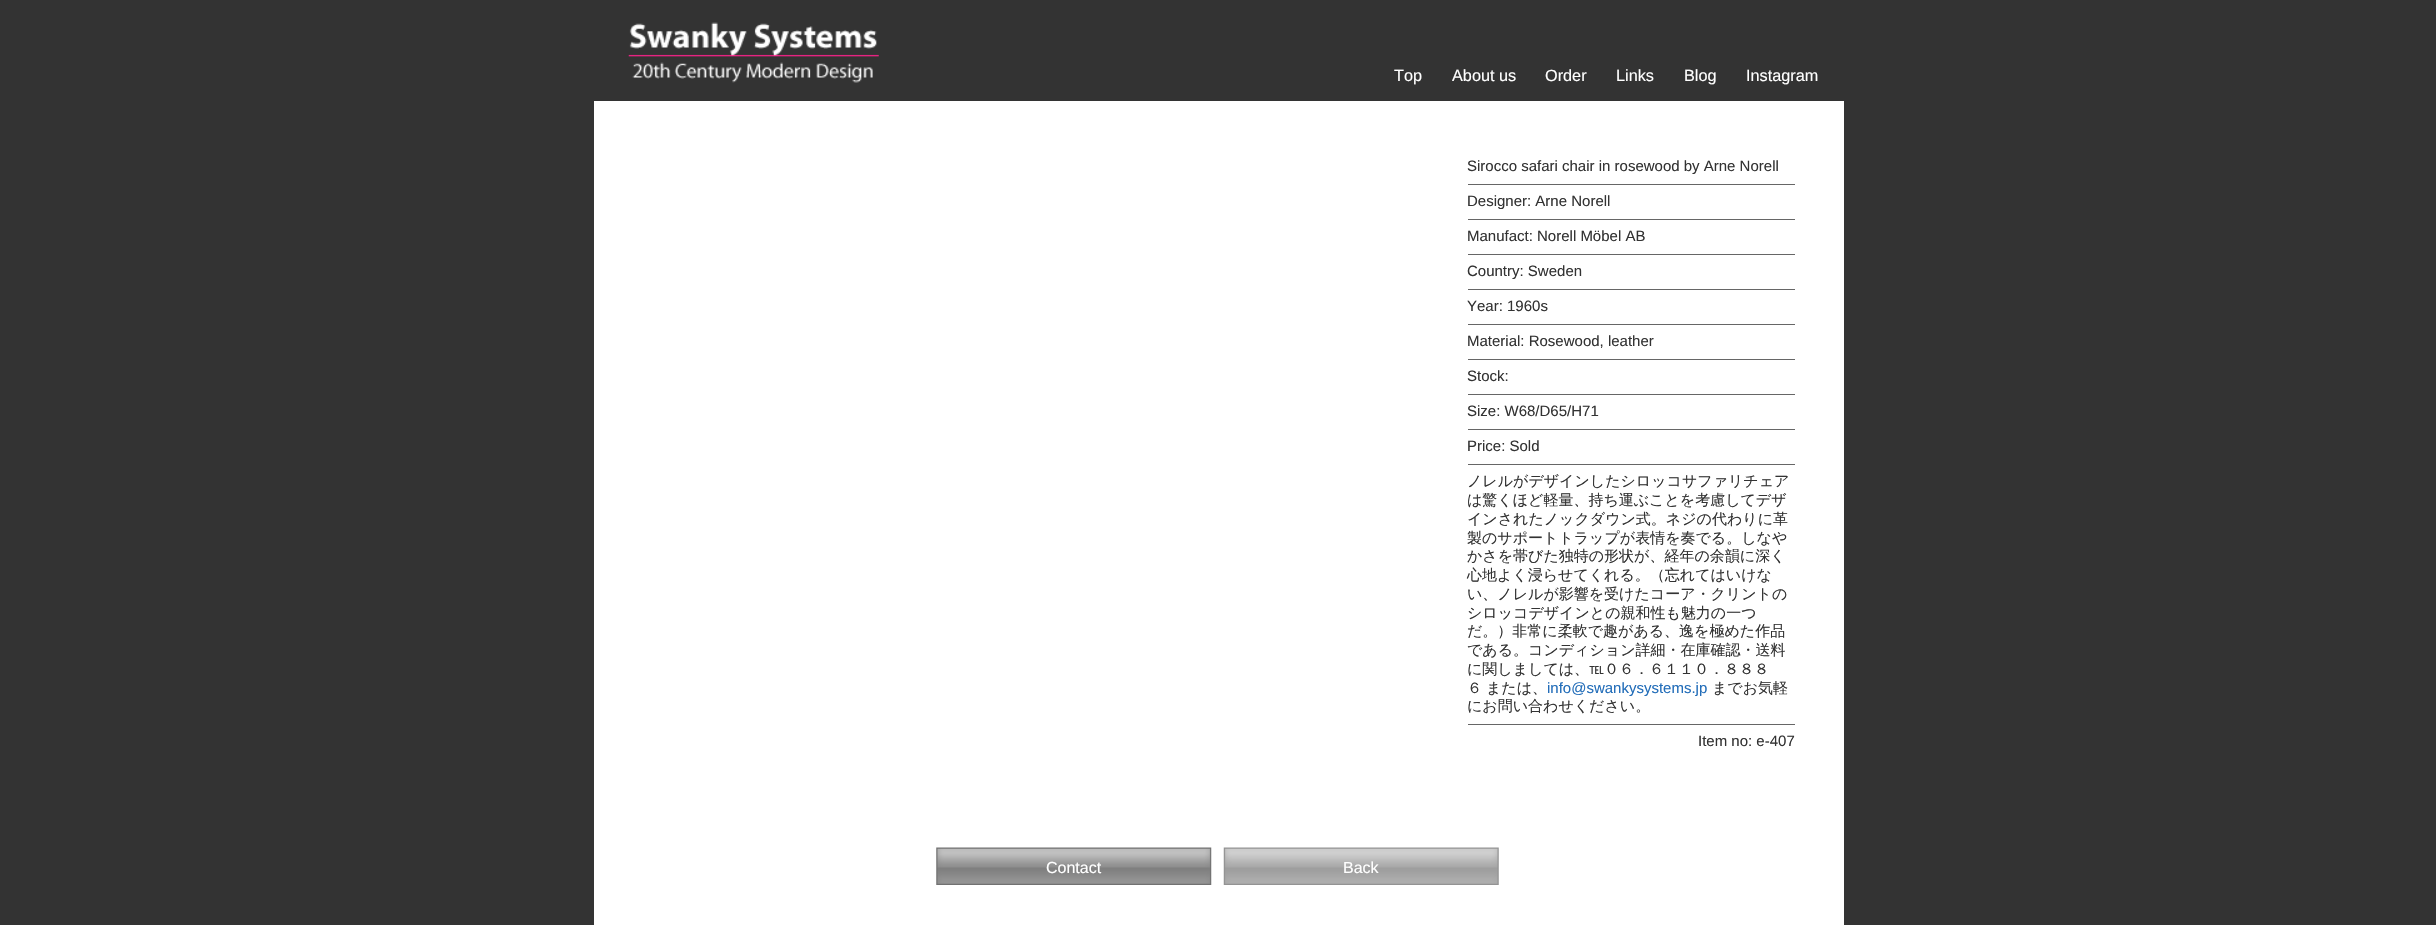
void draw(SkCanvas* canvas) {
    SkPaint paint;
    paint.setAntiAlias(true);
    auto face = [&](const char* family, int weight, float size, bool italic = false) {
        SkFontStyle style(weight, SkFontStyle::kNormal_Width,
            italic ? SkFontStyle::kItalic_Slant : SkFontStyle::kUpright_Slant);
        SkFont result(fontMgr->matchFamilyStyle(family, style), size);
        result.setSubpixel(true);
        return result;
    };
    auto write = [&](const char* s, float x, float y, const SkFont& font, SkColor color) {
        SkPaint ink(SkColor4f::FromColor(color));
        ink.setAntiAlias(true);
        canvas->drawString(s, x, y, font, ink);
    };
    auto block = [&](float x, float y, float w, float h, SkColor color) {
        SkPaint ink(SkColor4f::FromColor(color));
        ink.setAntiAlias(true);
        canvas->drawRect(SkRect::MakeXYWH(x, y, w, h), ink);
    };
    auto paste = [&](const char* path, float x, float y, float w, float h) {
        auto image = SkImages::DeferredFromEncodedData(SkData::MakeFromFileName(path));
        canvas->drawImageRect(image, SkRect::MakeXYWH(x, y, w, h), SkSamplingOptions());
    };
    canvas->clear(SkColorSetRGB(51, 51, 51));
    paste("pic1.png", 628, 22, 251, 61);
    auto kFont1 = face("Liberation Sans", 400, 16.25f);
    write("Top", 1394, 81, kFont1, SK_ColorWHITE);
    write("About us", 1452, 81, kFont1, SK_ColorWHITE);
    write("Order", 1545, 81, kFont1, SK_ColorWHITE);
    write("Links", 1616, 81, kFont1, SK_ColorWHITE);
    write("Blog", 1684, 81, kFont1, SK_ColorWHITE);
    write("Instagram", 1746, 81, kFont1, SK_ColorWHITE);
    block(594, 101, 1250, 824, SK_ColorWHITE);
    block(1468, 184, 327, 1, SkColorSetRGB(102, 102, 102));
    auto kFont2 = face("Liberation Sans", 400, 15);
    write("Sirocco safari chair in rosewood by Arne Norell", 1467, 171, kFont2, SkColorSetRGB(51, 51, 51));
    block(1468, 219, 327, 1, SkColorSetRGB(102, 102, 102));
    write("Designer: Arne Norell", 1467, 206, kFont2, SkColorSetRGB(51, 51, 51));
    block(1468, 254, 327, 1, SkColorSetRGB(102, 102, 102));
    write("Manufact: Norell Möbel AB", 1467, 241, kFont2, SkColorSetRGB(51, 51, 51));
    block(1468, 289, 327, 1, SkColorSetRGB(102, 102, 102));
    write("Country: Sweden", 1467, 276, kFont2, SkColorSetRGB(51, 51, 51));
    block(1468, 324, 327, 1, SkColorSetRGB(102, 102, 102));
    write("Year: 1960s", 1467, 311, kFont2, SkColorSetRGB(51, 51, 51));
    block(1468, 359, 327, 1, SkColorSetRGB(102, 102, 102));
    write("Material: Rosewood, leather", 1467, 346, kFont2, SkColorSetRGB(51, 51, 51));
    block(1468, 394, 327, 1, SkColorSetRGB(102, 102, 102));
    write("Stock:", 1467, 381, kFont2, SkColorSetRGB(51, 51, 51));
    block(1468, 429, 327, 1, SkColorSetRGB(102, 102, 102));
    write("Size: W68/D65/H71", 1467, 416, kFont2, SkColorSetRGB(51, 51, 51));
    block(1468, 464, 327, 1, SkColorSetRGB(102, 102, 102));
    write("Price: Sold", 1467, 451, kFont2, SkColorSetRGB(51, 51, 51));
    block(1468, 724, 327, 1, SkColorSetRGB(102, 102, 102));
    auto kFont3 = face("WenQuanYi Zen Hei", 500, 15);
    write("ノレルがデザインしたシロッコサファリチェア", 1467, 486, kFont3, SkColorSetRGB(51, 51, 51));
    write("は驚くほど軽量、持ち運ぶことを考慮してデザ", 1467, 505, kFont3, SkColorSetRGB(51, 51, 51));
    write("インされたノックダウン式。ネジの代わりに革", 1467, 524, kFont3, SkColorSetRGB(51, 51, 51));
    write("製のサポートトラップが表情を奏でる。しなや", 1467, 543, kFont3, SkColorSetRGB(51, 51, 51));
    write("かさを帯びた独特の形状が、経年の余韻に深く", 1467, 561, kFont3, SkColorSetRGB(51, 51, 51));
    write("心地よく浸らせてくれる。（忘れてはいけな", 1467, 580, kFont3, SkColorSetRGB(51, 51, 51));
    write("い、ノレルが影響を受けたコーア・クリントの", 1467, 599, kFont3, SkColorSetRGB(51, 51, 51));
    write("シロッコデザインとの親和性も魅力の一つ", 1467, 618, kFont3, SkColorSetRGB(51, 51, 51));
    write("だ。）非常に柔軟で趣がある、逸を極めた作品", 1467, 636, kFont3, SkColorSetRGB(51, 51, 51));
    write("である。コンディション詳細・在庫確認・送料", 1467, 655, kFont3, SkColorSetRGB(51, 51, 51));
    write("に関しましては、℡０６．６１１０．８８８", 1467, 674, kFont3, SkColorSetRGB(51, 51, 51));
    write("６", 1467, 693, kFont3, SkColorSetRGB(51, 51, 51));
    write("または、", 1486, 693, kFont3, SkColorSetRGB(51, 51, 51));
    write("info@swankysystems.jp", 1547, 693, kFont2, SkColorSetRGB(34, 109, 185));
    write("までお気軽", 1712, 693, kFont3, SkColorSetRGB(51, 51, 51));
    write("にお問い合わせください。", 1467, 711, kFont3, SkColorSetRGB(51, 51, 51));
    write("Item no: e-407", 1698, 746, kFont2, SkColorSetRGB(51, 51, 51));
    paste("pic2.png", 936, 847, 276, 38);
    auto kFont4 = face("Liberation Sans", 400, 16);
    write("Contact", 1046, 873, kFont4, SK_ColorWHITE);
    paste("pic3.png", 1223, 847, 276, 38);
    write("Back", 1343, 873, kFont4, SK_ColorWHITE);
}
